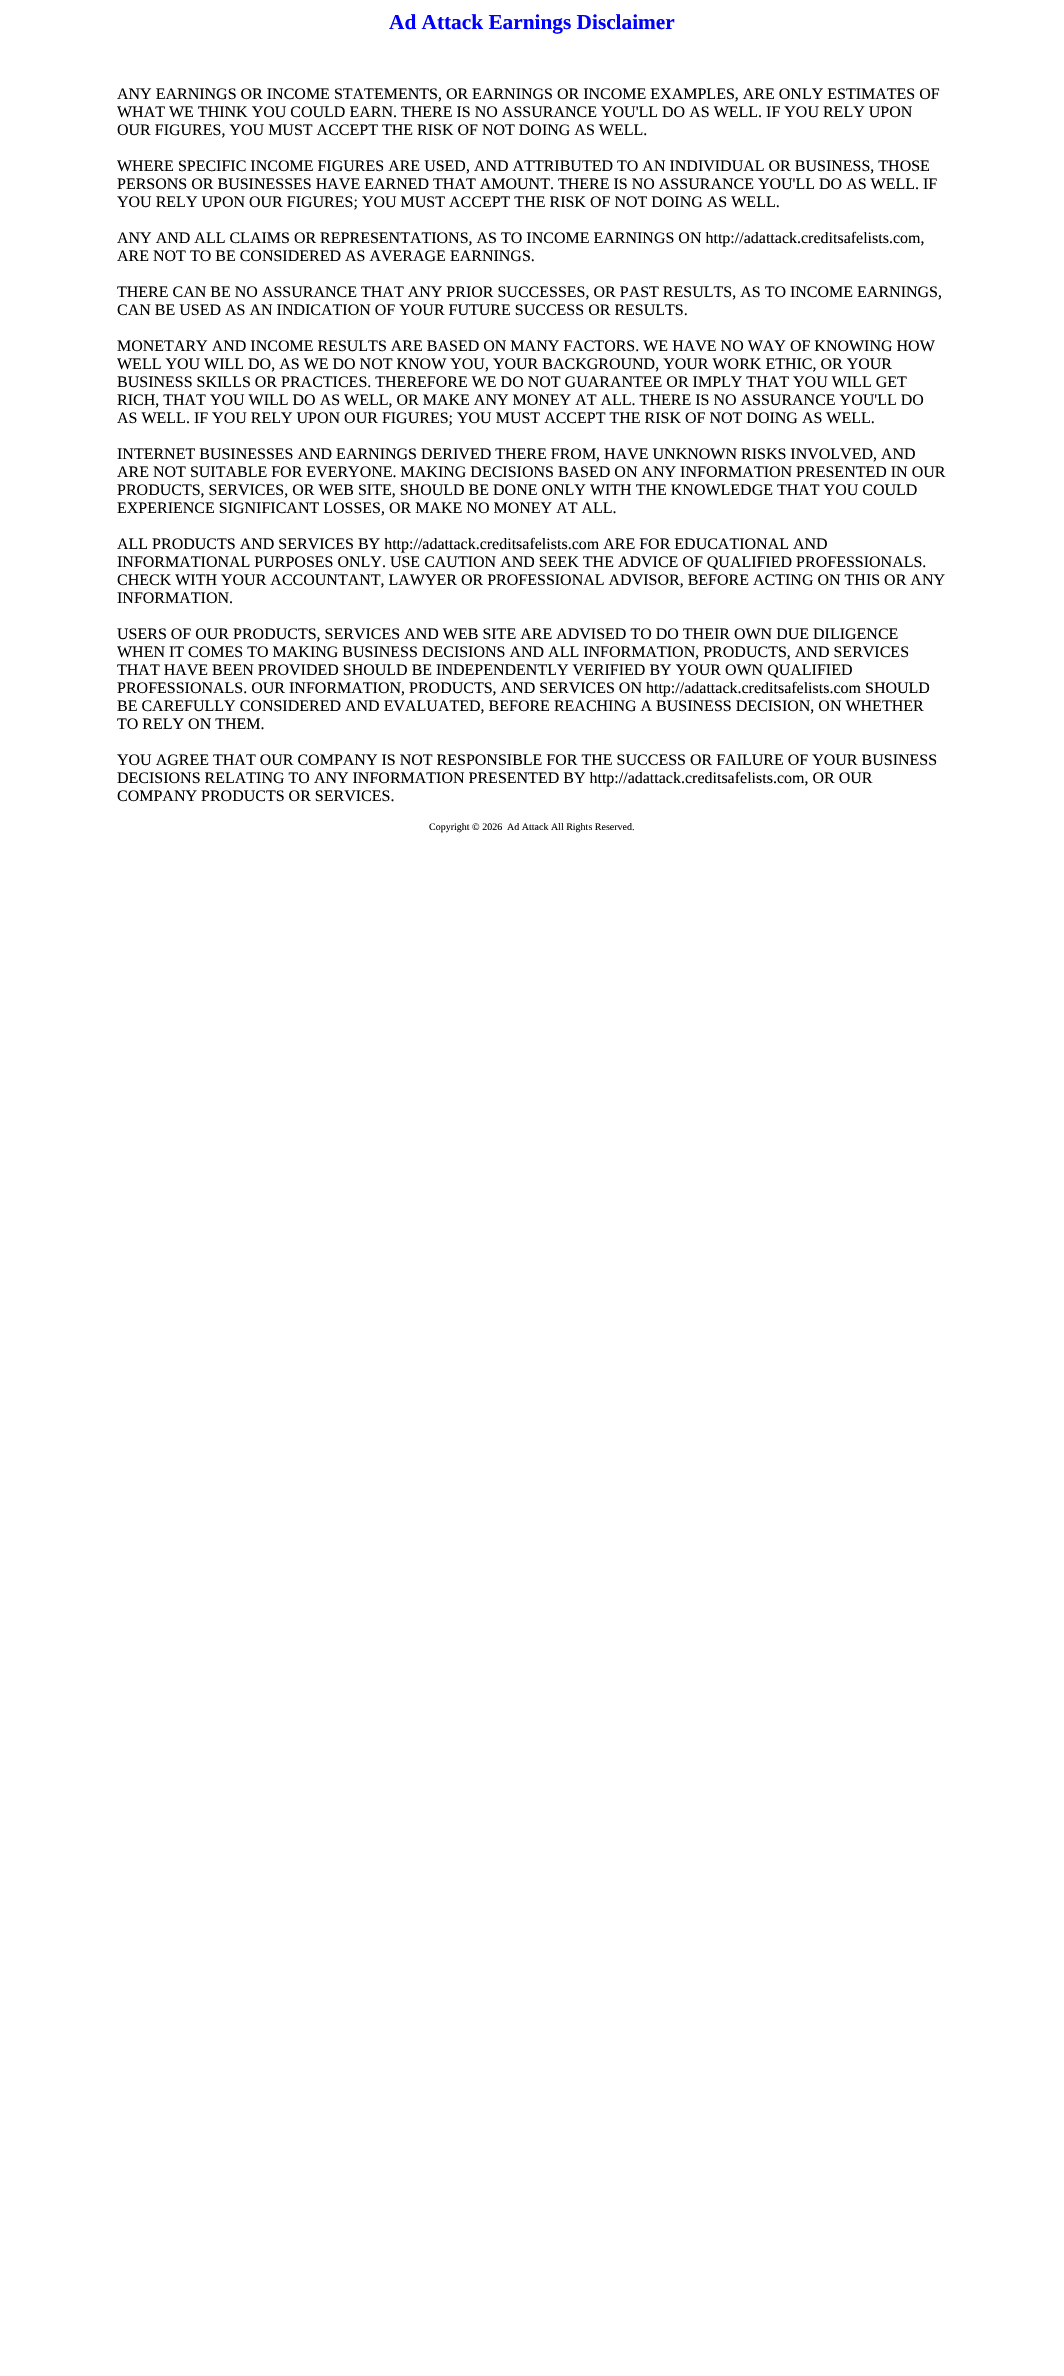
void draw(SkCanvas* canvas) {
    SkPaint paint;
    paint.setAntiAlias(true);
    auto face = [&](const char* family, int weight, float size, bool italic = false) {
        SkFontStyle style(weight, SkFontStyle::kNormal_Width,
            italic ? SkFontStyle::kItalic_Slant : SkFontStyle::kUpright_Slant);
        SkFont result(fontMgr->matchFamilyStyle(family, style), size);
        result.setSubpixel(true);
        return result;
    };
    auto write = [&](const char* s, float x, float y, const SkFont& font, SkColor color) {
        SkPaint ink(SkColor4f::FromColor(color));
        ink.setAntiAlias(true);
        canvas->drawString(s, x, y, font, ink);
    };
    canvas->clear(SK_ColorWHITE);
    auto kFont1 = face("Liberation Serif", 700, 21.3f);
    write("Ad Attack Earnings Disclaimer", 389, 29, kFont1, SkColorSetRGB(0, 0, 255));
    auto kFont2 = face("Liberation Serif", 400, 16);
    write("ANY EARNINGS OR INCOME STATEMENTS, OR EARNINGS OR INCOME EXAMPLES, ARE ONLY ESTIMATES OF", 117, 99, kFont2, SK_ColorBLACK);
    write("WHAT WE THINK YOU COULD EARN. THERE IS NO ASSURANCE YOU'LL DO AS WELL. IF YOU RELY UPON", 117, 117, kFont2, SK_ColorBLACK);
    write("OUR FIGURES, YOU MUST ACCEPT THE RISK OF NOT DOING AS WELL.", 117, 135, kFont2, SK_ColorBLACK);
    write("WHERE SPECIFIC INCOME FIGURES ARE USED, AND ATTRIBUTED TO AN INDIVIDUAL OR BUSINESS, THOSE", 117, 171, kFont2, SK_ColorBLACK);
    write("PERSONS OR BUSINESSES HAVE EARNED THAT AMOUNT. THERE IS NO ASSURANCE YOU'LL DO AS WELL. IF", 117, 189, kFont2, SK_ColorBLACK);
    write("YOU RELY UPON OUR FIGURES; YOU MUST ACCEPT THE RISK OF NOT DOING AS WELL.", 117, 207, kFont2, SK_ColorBLACK);
    write("ANY AND ALL CLAIMS OR REPRESENTATIONS, AS TO INCOME EARNINGS ON http://adattack.creditsafelists.com,", 117, 243, kFont2, SK_ColorBLACK);
    write("ARE NOT TO BE CONSIDERED AS AVERAGE EARNINGS.", 117, 261, kFont2, SK_ColorBLACK);
    write("THERE CAN BE NO ASSURANCE THAT ANY PRIOR SUCCESSES, OR PAST RESULTS, AS TO INCOME EARNINGS,", 117, 297, kFont2, SK_ColorBLACK);
    write("CAN BE USED AS AN INDICATION OF YOUR FUTURE SUCCESS OR RESULTS.", 117, 315, kFont2, SK_ColorBLACK);
    write("MONETARY AND INCOME RESULTS ARE BASED ON MANY FACTORS. WE HAVE NO WAY OF KNOWING HOW", 117, 351, kFont2, SK_ColorBLACK);
    write("WELL YOU WILL DO, AS WE DO NOT KNOW YOU, YOUR BACKGROUND, YOUR WORK ETHIC, OR YOUR", 117, 369, kFont2, SK_ColorBLACK);
    write("BUSINESS SKILLS OR PRACTICES. THEREFORE WE DO NOT GUARANTEE OR IMPLY THAT YOU WILL GET", 117, 387, kFont2, SK_ColorBLACK);
    write("RICH, THAT YOU WILL DO AS WELL, OR MAKE ANY MONEY AT ALL. THERE IS NO ASSURANCE YOU'LL DO", 117, 405, kFont2, SK_ColorBLACK);
    write("AS WELL. IF YOU RELY UPON OUR FIGURES; YOU MUST ACCEPT THE RISK OF NOT DOING AS WELL.", 117, 423, kFont2, SK_ColorBLACK);
    write("INTERNET BUSINESSES AND EARNINGS DERIVED THERE FROM, HAVE UNKNOWN RISKS INVOLVED, AND", 117, 459, kFont2, SK_ColorBLACK);
    write("ARE NOT SUITABLE FOR EVERYONE. MAKING DECISIONS BASED ON ANY INFORMATION PRESENTED IN OUR", 117, 477, kFont2, SK_ColorBLACK);
    write("PRODUCTS, SERVICES, OR WEB SITE, SHOULD BE DONE ONLY WITH THE KNOWLEDGE THAT YOU COULD", 117, 495, kFont2, SK_ColorBLACK);
    write("EXPERIENCE SIGNIFICANT LOSSES, OR MAKE NO MONEY AT ALL.", 117, 513, kFont2, SK_ColorBLACK);
    write("ALL PRODUCTS AND SERVICES BY http://adattack.creditsafelists.com ARE FOR EDUCATIONAL AND", 117, 549, kFont2, SK_ColorBLACK);
    write("INFORMATIONAL PURPOSES ONLY. USE CAUTION AND SEEK THE ADVICE OF QUALIFIED PROFESSIONALS.", 117, 567, kFont2, SK_ColorBLACK);
    write("CHECK WITH YOUR ACCOUNTANT, LAWYER OR PROFESSIONAL ADVISOR, BEFORE ACTING ON THIS OR ANY", 117, 585, kFont2, SK_ColorBLACK);
    write("INFORMATION.", 117, 603, kFont2, SK_ColorBLACK);
    write("USERS OF OUR PRODUCTS, SERVICES AND WEB SITE ARE ADVISED TO DO THEIR OWN DUE DILIGENCE", 117, 639, kFont2, SK_ColorBLACK);
    write("WHEN IT COMES TO MAKING BUSINESS DECISIONS AND ALL INFORMATION, PRODUCTS, AND SERVICES", 117, 657, kFont2, SK_ColorBLACK);
    write("THAT HAVE BEEN PROVIDED SHOULD BE INDEPENDENTLY VERIFIED BY YOUR OWN QUALIFIED", 117, 675, kFont2, SK_ColorBLACK);
    write("PROFESSIONALS. OUR INFORMATION, PRODUCTS, AND SERVICES ON http://adattack.creditsafelists.com SHOULD", 117, 693, kFont2, SK_ColorBLACK);
    write("BE CAREFULLY CONSIDERED AND EVALUATED, BEFORE REACHING A BUSINESS DECISION, ON WHETHER", 117, 711, kFont2, SK_ColorBLACK);
    write("TO RELY ON THEM.", 117, 729, kFont2, SK_ColorBLACK);
    write("YOU AGREE THAT OUR COMPANY IS NOT RESPONSIBLE FOR THE SUCCESS OR FAILURE OF YOUR BUSINESS", 117, 765, kFont2, SK_ColorBLACK);
    write("DECISIONS RELATING TO ANY INFORMATION PRESENTED BY http://adattack.creditsafelists.com, OR OUR", 117, 783, kFont2, SK_ColorBLACK);
    write("COMPANY PRODUCTS OR SERVICES.", 117, 801, kFont2, SK_ColorBLACK);
    auto kFont3 = face("Liberation Serif", 400, 10);
    write("Copyright © 2026", 429, 830, kFont3, SK_ColorBLACK);
    write("Ad Attack All Rights Reserved.", 507, 830, kFont3, SK_ColorBLACK);
}
